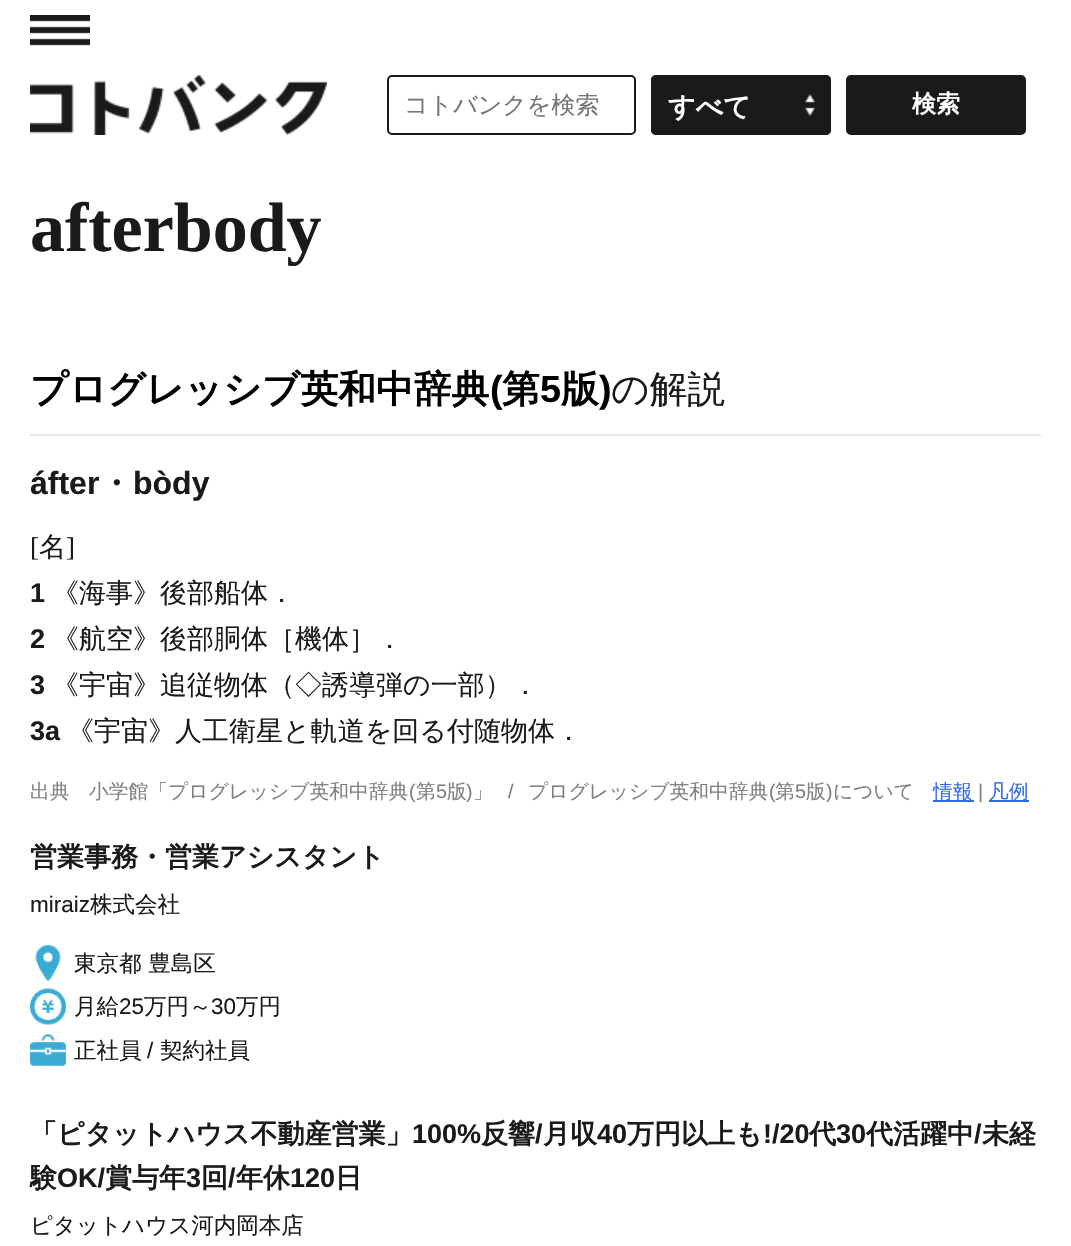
void draw(SkCanvas* canvas) {
    SkPaint paint;
    paint.setAntiAlias(true);
    auto face = [&](const char* family, int weight, float size, bool italic = false) {
        SkFontStyle style(weight, SkFontStyle::kNormal_Width,
            italic ? SkFontStyle::kItalic_Slant : SkFontStyle::kUpright_Slant);
        SkFont result(fontMgr->matchFamilyStyle(family, style), size);
        result.setSubpixel(true);
        return result;
    };
    auto write = [&](const char* s, float x, float y, const SkFont& font, SkColor color) {
        SkPaint ink(SkColor4f::FromColor(color));
        ink.setAntiAlias(true);
        canvas->drawString(s, x, y, font, ink);
    };
    auto block = [&](float x, float y, float w, float h, SkColor color) {
        SkPaint ink(SkColor4f::FromColor(color));
        ink.setAntiAlias(true);
        canvas->drawRect(SkRect::MakeXYWH(x, y, w, h), ink);
    };
    auto card = [&](float x, float y, float w, float h, float radius, SkColor color) {
        SkPaint ink(SkColor4f::FromColor(color));
        ink.setAntiAlias(true);
        canvas->drawRoundRect(SkRect::MakeXYWH(x, y, w, h), radius, radius, ink);
    };
    auto paste = [&](const char* path, float x, float y, float w, float h) {
        auto image = SkImages::DeferredFromEncodedData(SkData::MakeFromFileName(path));
        canvas->drawImageRect(image, SkRect::MakeXYWH(x, y, w, h), SkSamplingOptions());
    };
    canvas->clear(SK_ColorWHITE);
    paste("pic1.png", 30, 15, 60, 31);
    paste("pic2.png", 30, 75, 297, 60);
    paint.setStyle(SkPaint::kStroke_Style);
    paint.setStrokeWidth(2);
    paint.setColor(SkColorSetRGB(26, 26, 26));
    canvas->drawRoundRect(SkRect::MakeXYWH(388, 76, 247, 58), 4, 4, paint);
    auto kFont1 = face("WenQuanYi Zen Hei", 500, 24);
    write("コトバンクを検索", 404, 113, kFont1, SkColorSetRGB(117, 117, 117));
    card(651, 75, 180, 60, 5, SkColorSetRGB(26, 26, 26));
    paste("pic3.png", 805, 94, 10, 22);
    canvas->drawRoundRect(SkRect::MakeXYWH(652, 76, 178, 58), 4, 4, paint);
    auto kFont2 = face("WenQuanYi Zen Hei", 700, 27);
    write("すべて", 668, 116, kFont2, SK_ColorWHITE);
    paint.setStyle(SkPaint::kFill_Style);
    canvas->drawRoundRect(SkRect::MakeXYWH(847, 76, 178, 58), 4, 4, paint);
    paint.setStyle(SkPaint::kStroke_Style);
    canvas->drawRoundRect(SkRect::MakeXYWH(847, 76, 178, 58), 4, 4, paint);
    auto kFont3 = face("WenQuanYi Zen Hei", 700, 24);
    write("検索", 912, 112, kFont3, SK_ColorWHITE);
    auto kFont4 = face("Liberation Serif", 700, 70);
    write("afterbody", 30, 251, kFont4, SkColorSetRGB(26, 26, 26));
    block(30, 434, 1011, 2, SkColorSetRGB(230, 230, 230));
    auto kFont5 = face("WenQuanYi Zen Hei", 700, 37.75f);
    write("プログレッシブ英和中辞典", 30, 402, kFont5, SK_ColorBLACK);
    auto kFont6 = face("Liberation Sans", 700, 37.75f);
    write("(", 490, 402, kFont6, SK_ColorBLACK);
    write("第", 502, 402, kFont5, SK_ColorBLACK);
    write("5", 540, 402, kFont6, SK_ColorBLACK);
    write("版", 561, 402, kFont5, SK_ColorBLACK);
    write(")", 599, 402, kFont6, SK_ColorBLACK);
    auto kFont7 = face("WenQuanYi Zen Hei", 500, 37.75f);
    write("の解説", 611, 402, kFont7, SkColorSetRGB(26, 26, 26));
    auto kFont8 = face("Liberation Sans", 700, 32);
    write("áfter", 30, 494, kFont8, SkColorSetRGB(26, 26, 26));
    auto kFont9 = face("WenQuanYi Zen Hei", 700, 32);
    write("・", 100, 494, kFont9, SkColorSetRGB(26, 26, 26));
    write("bòdy", 133, 494, kFont8, SkColorSetRGB(26, 26, 26));
    auto kFont10 = face("Liberation Serif", 400, 27);
    write("[", 30, 556, kFont10, SkColorSetRGB(26, 26, 26));
    auto kFont11 = face("WenQuanYi Zen Hei", 500, 27);
    write("名", 39, 556, kFont11, SkColorSetRGB(26, 26, 26));
    write("]", 66, 556, kFont10, SkColorSetRGB(26, 26, 26));
    auto kFont12 = face("Liberation Sans", 700, 27);
    write("1", 30, 602, kFont12, SkColorSetRGB(26, 26, 26));
    write("《海事》後部船体．", 52, 602, kFont11, SkColorSetRGB(26, 26, 26));
    write("2", 30, 648, kFont12, SkColorSetRGB(26, 26, 26));
    write("《航空》後部胴体［機体］．", 52, 648, kFont11, SkColorSetRGB(26, 26, 26));
    write("3", 30, 694, kFont12, SkColorSetRGB(26, 26, 26));
    write("《宇宙》追従物体（◇誘導弾の一部）．", 52, 694, kFont11, SkColorSetRGB(26, 26, 26));
    write("3a", 30, 740, kFont12, SkColorSetRGB(26, 26, 26));
    write("《宇宙》人工衛星と軌道を回る付随物体．", 67, 740, kFont11, SkColorSetRGB(26, 26, 26));
    auto kFont13 = face("WenQuanYi Zen Hei", 500, 19.75f);
    write("出典", 30, 798, kFont13, SkColorSetRGB(128, 128, 128));
    write("小学館「プログレッシブ英和中辞典", 89, 798, kFont13, SkColorSetRGB(128, 128, 128));
    auto kFont14 = face("Liberation Sans", 400, 19.75f);
    write("(", 409, 798, kFont14, SkColorSetRGB(128, 128, 128));
    write("第", 416, 798, kFont13, SkColorSetRGB(128, 128, 128));
    write("5", 436, 798, kFont14, SkColorSetRGB(128, 128, 128));
    write("版", 447, 798, kFont13, SkColorSetRGB(128, 128, 128));
    write(")", 466, 798, kFont14, SkColorSetRGB(128, 128, 128));
    write("」", 473, 798, kFont13, SkColorSetRGB(128, 128, 128));
    write("/", 508, 798, kFont14, SkColorSetRGB(128, 128, 128));
    write("プログレッシブ英和中辞典", 528, 798, kFont13, SkColorSetRGB(128, 128, 128));
    write("(", 769, 798, kFont14, SkColorSetRGB(128, 128, 128));
    write("第", 775, 798, kFont13, SkColorSetRGB(128, 128, 128));
    write("5", 795, 798, kFont14, SkColorSetRGB(128, 128, 128));
    write("版", 806, 798, kFont13, SkColorSetRGB(128, 128, 128));
    write(")", 826, 798, kFont14, SkColorSetRGB(128, 128, 128));
    write("について", 833, 798, kFont13, SkColorSetRGB(128, 128, 128));
    block(933, 800, 41, 2, SkColorSetRGB(47, 107, 230));
    write("情報", 933, 798, kFont13, SkColorSetRGB(47, 107, 230));
    write("|", 978, 798, kFont14, SkColorSetRGB(128, 128, 128));
    block(989, 800, 40, 2, SkColorSetRGB(47, 107, 230));
    write("凡例", 989, 798, kFont13, SkColorSetRGB(47, 107, 230));
    write("営業事務・営業アシスタント", 30, 866, kFont2, SkColorSetRGB(26, 26, 26));
    auto kFont15 = face("Liberation Sans", 400, 22.5f);
    write("miraiz", 30, 912, kFont15, SkColorSetRGB(26, 26, 26));
    auto kFont16 = face("WenQuanYi Zen Hei", 500, 22.5f);
    write("株式会社", 90, 912, kFont16, SkColorSetRGB(26, 26, 26));
    paste("pic4.png", 35, 945, 26, 36);
    write("東京都 豊島区", 74, 971, kFont16, SkColorSetRGB(26, 26, 26));
    paste("pic5.png", 30, 988, 36, 37);
    write("月給", 74, 1014, kFont16, SkColorSetRGB(26, 26, 26));
    write("25", 119, 1014, kFont15, SkColorSetRGB(26, 26, 26));
    write("万円～", 144, 1014, kFont16, SkColorSetRGB(26, 26, 26));
    write("30", 211, 1014, kFont15, SkColorSetRGB(26, 26, 26));
    write("万円", 236, 1014, kFont16, SkColorSetRGB(26, 26, 26));
    paste("pic6.png", 30, 1034, 36, 32);
    write("正社員", 74, 1058, kFont16, SkColorSetRGB(26, 26, 26));
    write("/", 147, 1058, kFont15, SkColorSetRGB(26, 26, 26));
    write("契約社員", 160, 1058, kFont16, SkColorSetRGB(26, 26, 26));
    write("「ピタットハウス不動産営業」", 30, 1143, kFont2, SkColorSetRGB(26, 26, 26));
    write("100%", 412, 1143, kFont12, SkColorSetRGB(26, 26, 26));
    write("反響", 481, 1143, kFont2, SkColorSetRGB(26, 26, 26));
    write("/", 535, 1143, kFont12, SkColorSetRGB(26, 26, 26));
    write("月収", 543, 1143, kFont2, SkColorSetRGB(26, 26, 26));
    write("40", 597, 1143, kFont12, SkColorSetRGB(26, 26, 26));
    write("万円以上も", 627, 1143, kFont2, SkColorSetRGB(26, 26, 26));
    write("!/20", 763, 1143, kFont12, SkColorSetRGB(26, 26, 26));
    write("代", 809, 1143, kFont2, SkColorSetRGB(26, 26, 26));
    write("30", 836, 1143, kFont12, SkColorSetRGB(26, 26, 26));
    write("代活躍中", 866, 1143, kFont2, SkColorSetRGB(26, 26, 26));
    write("/", 974, 1143, kFont12, SkColorSetRGB(26, 26, 26));
    write("未経", 982, 1143, kFont2, SkColorSetRGB(26, 26, 26));
    write("験", 30, 1187, kFont2, SkColorSetRGB(26, 26, 26));
    write("OK/", 57, 1187, kFont12, SkColorSetRGB(26, 26, 26));
    write("賞与年", 105, 1187, kFont2, SkColorSetRGB(26, 26, 26));
    write("3", 186, 1187, kFont12, SkColorSetRGB(26, 26, 26));
    write("回", 201, 1187, kFont2, SkColorSetRGB(26, 26, 26));
    write("/", 228, 1187, kFont12, SkColorSetRGB(26, 26, 26));
    write("年休", 236, 1187, kFont2, SkColorSetRGB(26, 26, 26));
    write("120", 290, 1187, kFont12, SkColorSetRGB(26, 26, 26));
    write("日", 335, 1187, kFont2, SkColorSetRGB(26, 26, 26));
    write("ピタットハウス河内岡本店", 30, 1233, kFont16, SkColorSetRGB(26, 26, 26));
}
